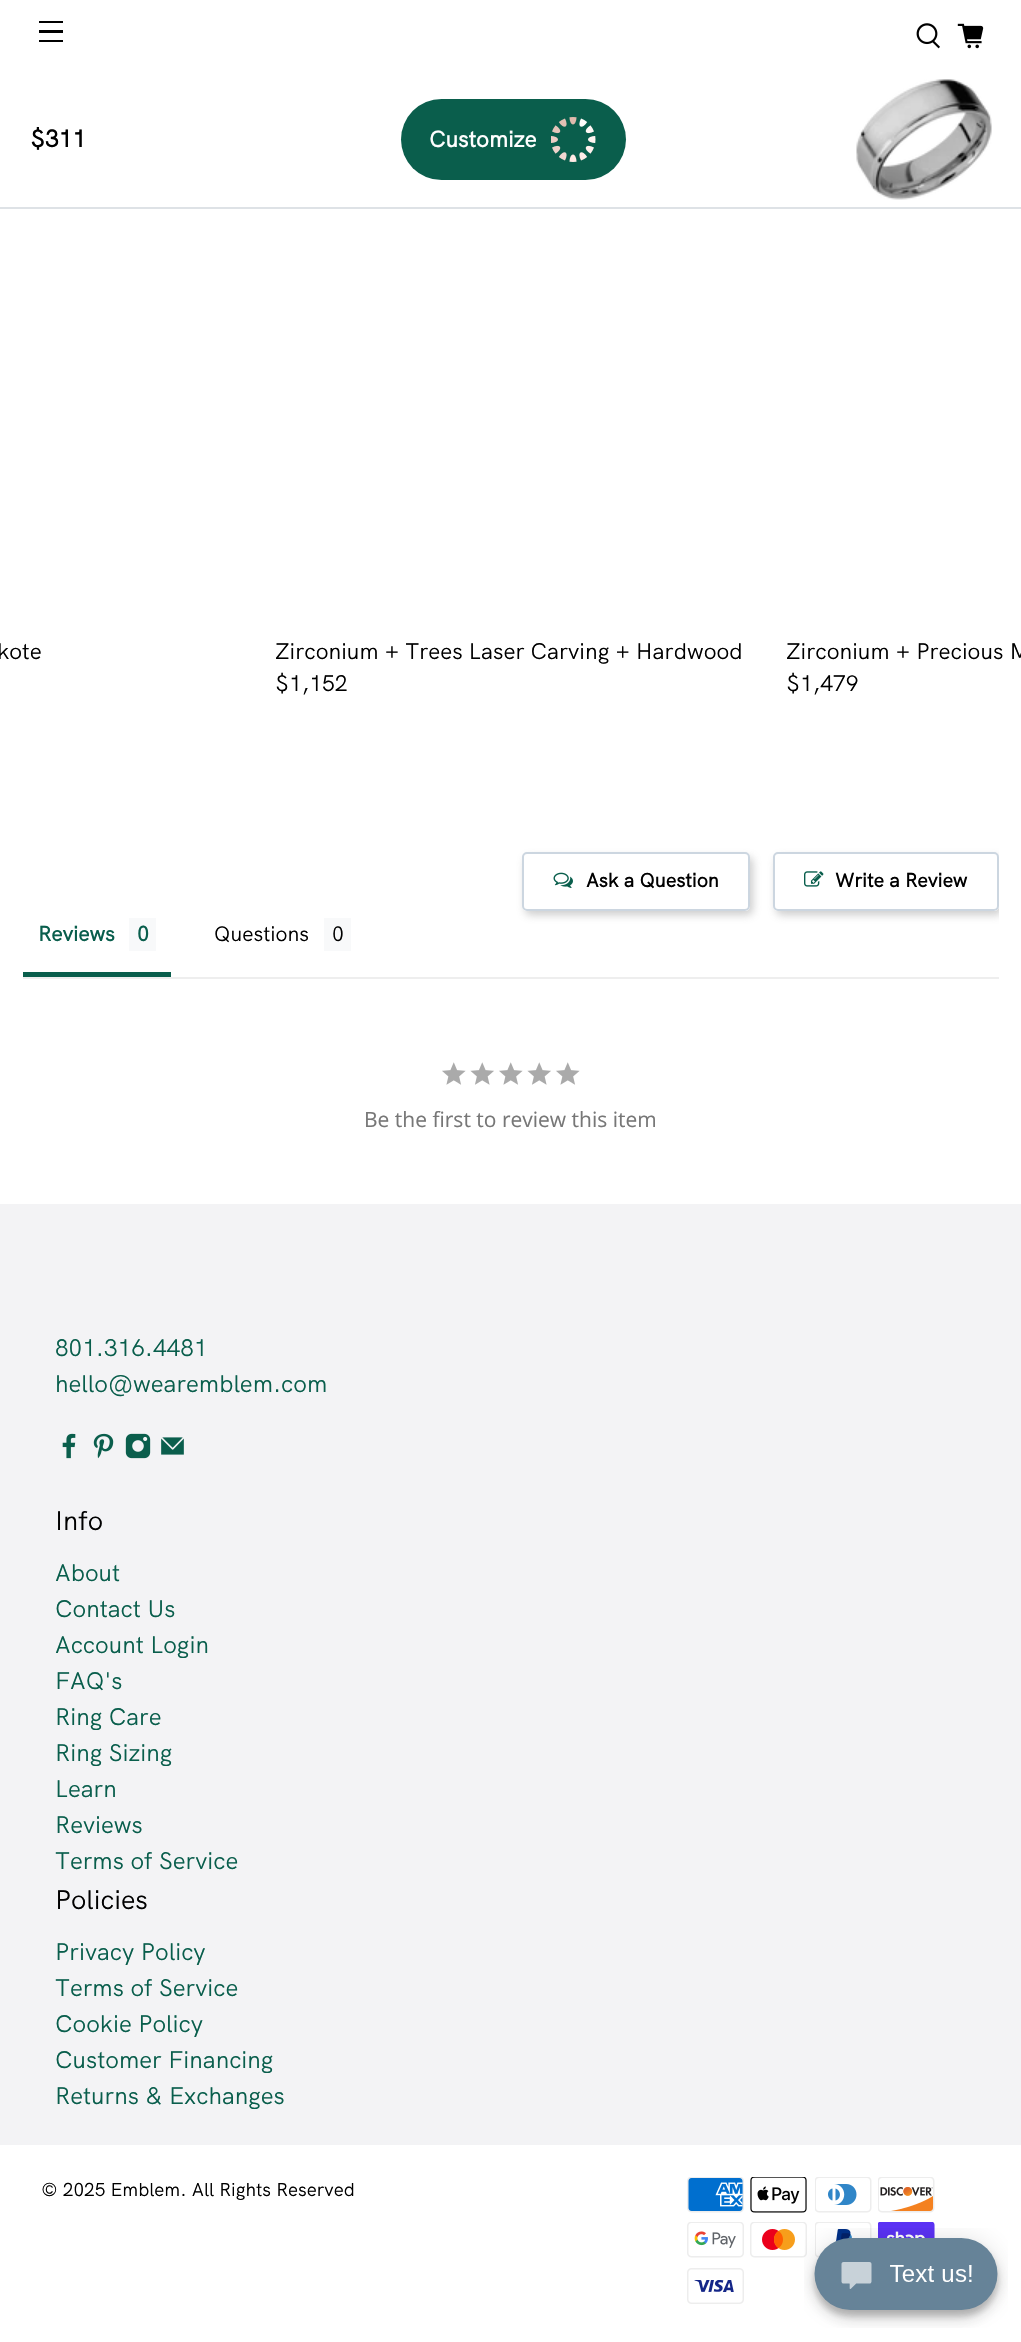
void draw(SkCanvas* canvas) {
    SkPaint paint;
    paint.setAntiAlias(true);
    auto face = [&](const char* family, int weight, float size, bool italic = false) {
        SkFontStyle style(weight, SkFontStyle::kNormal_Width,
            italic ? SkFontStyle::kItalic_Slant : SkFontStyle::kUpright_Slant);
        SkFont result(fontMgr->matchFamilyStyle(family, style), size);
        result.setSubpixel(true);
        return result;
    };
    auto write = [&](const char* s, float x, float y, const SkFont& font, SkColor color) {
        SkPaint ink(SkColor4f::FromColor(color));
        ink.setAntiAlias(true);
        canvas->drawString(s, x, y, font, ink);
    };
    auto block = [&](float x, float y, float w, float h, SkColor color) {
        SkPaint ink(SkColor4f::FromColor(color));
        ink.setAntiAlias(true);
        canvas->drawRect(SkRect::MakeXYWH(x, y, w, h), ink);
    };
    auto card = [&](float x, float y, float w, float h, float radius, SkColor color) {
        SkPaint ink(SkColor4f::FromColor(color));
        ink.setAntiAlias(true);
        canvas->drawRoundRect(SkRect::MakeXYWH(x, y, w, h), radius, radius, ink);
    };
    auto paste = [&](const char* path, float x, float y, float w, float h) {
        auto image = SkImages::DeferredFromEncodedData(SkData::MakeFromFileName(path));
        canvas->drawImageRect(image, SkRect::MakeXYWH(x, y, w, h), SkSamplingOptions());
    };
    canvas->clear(SK_ColorWHITE);
    block(39, 21, 24, 2, SK_ColorBLACK);
    block(39, 30, 24, 3, SK_ColorBLACK);
    block(39, 40, 24, 2, SK_ColorBLACK);
    paste("pic1.png", 916, 23, 24, 26);
    paste("pic2.png", 957, 23, 27, 26);
    block(0, 207, 1021, 2, SkColorSetRGB(222, 226, 230));
    auto kFont1 = face("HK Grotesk", 700, 24);
    write("$311", 30, 147, kFont1, SK_ColorBLACK);
    card(401, 99, 225, 81, 40.5f, SkColorSetRGB(10, 94, 76));
    auto kFont2 = face("HK Grotesk", 700, 22.5f);
    write("Customize", 429, 147, kFont2, SK_ColorWHITE);
    paste("pic3.png", 551, 117, 45, 45);
    paste("pic4.png", 856, 79, 136, 121);
    auto kFont3 = face("HK Grotesk", 400, 22.5f);
    write("kote", -3, 659, kFont3, SK_ColorBLACK);
    write("Zirconium + Trees Laser Carving + Hardwood", 275, 659, kFont3, SK_ColorBLACK);
    write("$1,152", 275, 691, kFont3, SK_ColorBLACK);
    write("Zirconium + Precious M", 786, 659, kFont3, SK_ColorBLACK);
    write("$1,479", 786, 691, kFont3, SK_ColorBLACK);
    canvas->save();
    canvas->clipPath(SkPathBuilder(SkPathFillType::kEvenOdd).moveTo(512, 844).lineTo(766, 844).lineTo(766, 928).lineTo(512, 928).close().moveTo(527, 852).lineTo(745, 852).cubicTo(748, 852, 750, 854, 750, 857).lineTo(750, 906).cubicTo(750, 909, 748, 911, 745, 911).lineTo(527, 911).cubicTo(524, 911, 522, 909, 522, 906).lineTo(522, 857).cubicTo(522, 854, 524, 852, 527, 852).close().detach(), true);
    paint.setColor(SkColorSetARGB(107, 136, 136, 136));
    paint.setMaskFilter(SkMaskFilter::MakeBlur(kNormal_SkBlurStyle, 4));
    canvas->drawRoundRect(SkRect::MakeXYWH(525, 857, 228, 58), 5, 5, paint);
    paint.setMaskFilter(nullptr);
    canvas->restore();
    paint.setStyle(SkPaint::kStroke_Style);
    paint.setStrokeWidth(2);
    paint.setColor(SkColorSetRGB(204, 214, 224));
    canvas->drawRoundRect(SkRect::MakeXYWH(523, 853, 226, 57), 4, 4, paint);
    paste("pic5.png", 553, 872, 20, 16);
    auto kFont4 = face("HK Grotesk", 700, 19.5f);
    write("Ask a Question", 586, 887, kFont4, SK_ColorBLACK);
    canvas->save();
    canvas->clipRect(SkRect::MakeXYWH(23, 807, 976, 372));
    canvas->clipPath(SkPathBuilder(SkPathFillType::kEvenOdd).moveTo(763, 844).lineTo(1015, 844).lineTo(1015, 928).lineTo(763, 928).close().moveTo(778, 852).lineTo(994, 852).cubicTo(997, 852, 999, 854, 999, 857).lineTo(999, 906).cubicTo(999, 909, 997, 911, 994, 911).lineTo(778, 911).cubicTo(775, 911, 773, 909, 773, 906).lineTo(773, 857).cubicTo(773, 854, 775, 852, 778, 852).close().detach(), true);
    paint.setStyle(SkPaint::kFill_Style);
    paint.setColor(SkColorSetARGB(107, 136, 136, 136));
    paint.setMaskFilter(SkMaskFilter::MakeBlur(kNormal_SkBlurStyle, 4));
    canvas->drawRoundRect(SkRect::MakeXYWH(776, 857, 226, 58), 5, 5, paint);
    paint.setMaskFilter(nullptr);
    canvas->restore();
    paint.setStyle(SkPaint::kStroke_Style);
    paint.setColor(SkColorSetRGB(204, 214, 224));
    canvas->drawRoundRect(SkRect::MakeXYWH(774, 853, 224, 57), 4, 4, paint);
    paste("pic6.png", 804, 871, 20, 16);
    write("Write a Review", 835, 887, kFont4, SK_ColorBLACK);
    block(23, 977, 976, 2, SkColorSetRGB(238, 238, 238));
    block(23, 972, 148, 5, SkColorSetRGB(9, 94, 76));
    auto kFont5 = face("HK Grotesk", 700, 21);
    write("Reviews", 38, 941, kFont5, SkColorSetRGB(9, 94, 76));
    block(129, 918, 27, 33, SkColorSetRGB(248, 249, 250));
    write("0", 137, 941, kFont5, SkColorSetRGB(9, 94, 76));
    auto kFont6 = face("HK Grotesk", 400, 21);
    write("Questions", 214, 941, kFont6, SK_ColorBLACK);
    block(324, 918, 27, 33, SkColorSetRGB(248, 249, 250));
    write("0", 332, 941, kFont6, SK_ColorBLACK);
    paste("pic7.png", 442, 1062, 138, 23);
    auto kFont7 = face("Open Sans", 400, 21);
    write("Be the first to review this item", 364, 1127, kFont7, SkColorSetRGB(119, 119, 119));
    block(0, 1204, 1021, 941, SkColorSetRGB(243, 243, 245));
    auto kFont8 = face("HK Grotesk", 400, 24);
    write("801.316.4481", 55, 1356, kFont8, SkColorSetRGB(9, 94, 76));
    write("hello@wearemblem.com", 55, 1392, kFont8, SkColorSetRGB(9, 94, 76));
    paste("pic8.png", 62, 1433, 14, 26);
    paste("pic9.png", 93, 1433, 21, 26);
    paste("pic10.png", 125, 1433, 26, 26);
    paste("pic11.png", 161, 1437, 23, 18);
    auto kFont9 = face("HK Grotesk", 400, 27);
    write("Info", 55, 1530, kFont9, SK_ColorBLACK);
    write("About", 55, 1581, kFont8, SkColorSetRGB(9, 94, 76));
    write("Contact Us", 55, 1617, kFont8, SkColorSetRGB(9, 94, 76));
    write("Account Login", 55, 1653, kFont8, SkColorSetRGB(9, 94, 76));
    write("FAQ's", 55, 1689, kFont8, SkColorSetRGB(9, 94, 76));
    write("Ring Care", 55, 1725, kFont8, SkColorSetRGB(9, 94, 76));
    write("Ring Sizing", 55, 1761, kFont8, SkColorSetRGB(9, 94, 76));
    write("Learn", 55, 1797, kFont8, SkColorSetRGB(9, 94, 76));
    write("Reviews", 55, 1833, kFont8, SkColorSetRGB(9, 94, 76));
    write("Terms of Service", 55, 1869, kFont8, SkColorSetRGB(9, 94, 76));
    write("Policies", 55, 1909, kFont9, SK_ColorBLACK);
    write("Privacy Policy", 55, 1960, kFont8, SkColorSetRGB(9, 94, 76));
    write("Terms of Service", 55, 1996, kFont8, SkColorSetRGB(9, 94, 76));
    write("Cookie Policy", 55, 2032, kFont8, SkColorSetRGB(9, 94, 76));
    write("Customer Financing", 55, 2068, kFont8, SkColorSetRGB(9, 94, 76));
    write("Returns & Exchanges", 55, 2104, kFont8, SkColorSetRGB(9, 94, 76));
    auto kFont10 = face("HK Grotesk", 400, 18.75f);
    write("© 2025 Emblem. All Rights Reserved", 41, 2196, kFont10, SK_ColorBLACK);
    paste("pic12.png", 687, 2177, 57, 36);
    paste("pic13.png", 750, 2177, 57, 36);
    paste("pic14.png", 815, 2177, 57, 36);
    paste("pic15.png", 878, 2177, 57, 36);
    paste("pic16.png", 687, 2222, 57, 36);
    paste("pic17.png", 750, 2222, 57, 36);
    paste("pic18.png", 815, 2222, 57, 36);
    paste("pic19.png", 878, 2222, 57, 16);
    paste("pic20.png", 687, 2268, 57, 36);
    paste("pic21.png", 804, 2228, 204, 100);
}
